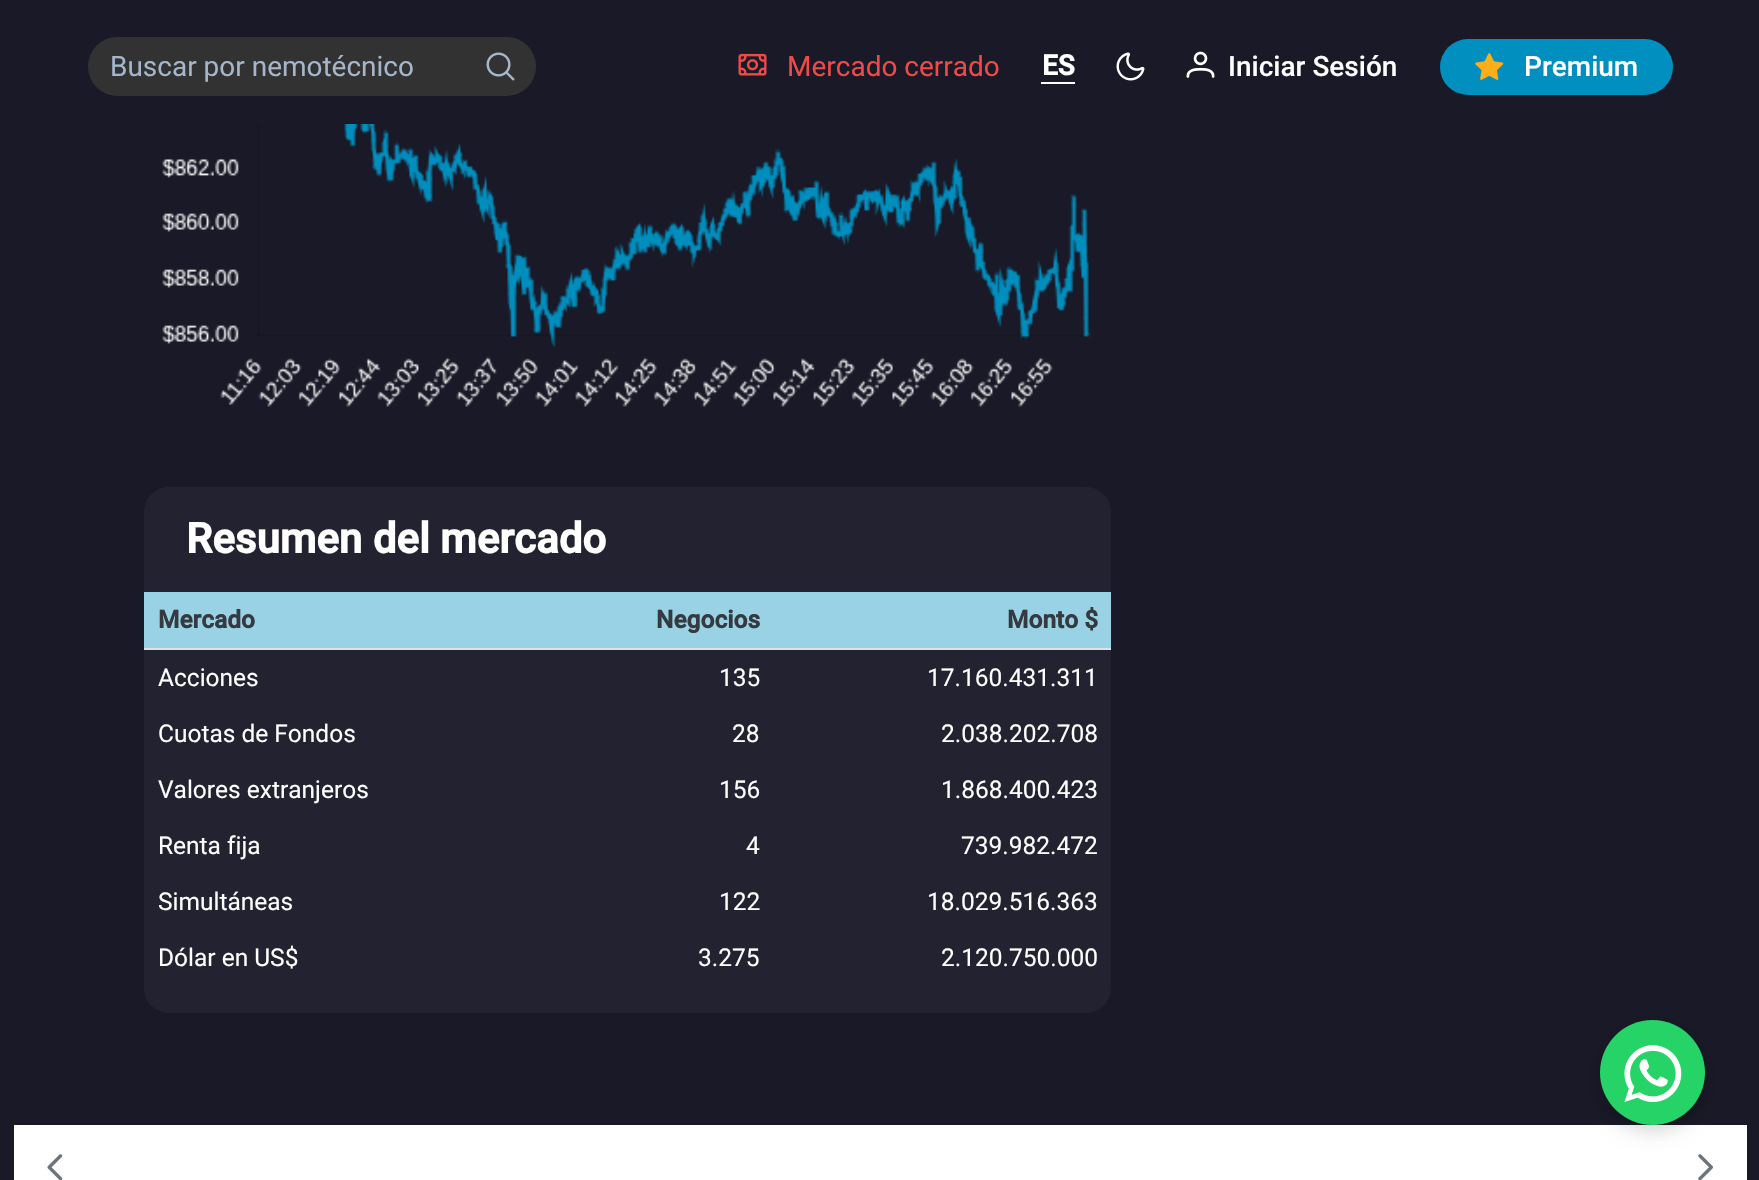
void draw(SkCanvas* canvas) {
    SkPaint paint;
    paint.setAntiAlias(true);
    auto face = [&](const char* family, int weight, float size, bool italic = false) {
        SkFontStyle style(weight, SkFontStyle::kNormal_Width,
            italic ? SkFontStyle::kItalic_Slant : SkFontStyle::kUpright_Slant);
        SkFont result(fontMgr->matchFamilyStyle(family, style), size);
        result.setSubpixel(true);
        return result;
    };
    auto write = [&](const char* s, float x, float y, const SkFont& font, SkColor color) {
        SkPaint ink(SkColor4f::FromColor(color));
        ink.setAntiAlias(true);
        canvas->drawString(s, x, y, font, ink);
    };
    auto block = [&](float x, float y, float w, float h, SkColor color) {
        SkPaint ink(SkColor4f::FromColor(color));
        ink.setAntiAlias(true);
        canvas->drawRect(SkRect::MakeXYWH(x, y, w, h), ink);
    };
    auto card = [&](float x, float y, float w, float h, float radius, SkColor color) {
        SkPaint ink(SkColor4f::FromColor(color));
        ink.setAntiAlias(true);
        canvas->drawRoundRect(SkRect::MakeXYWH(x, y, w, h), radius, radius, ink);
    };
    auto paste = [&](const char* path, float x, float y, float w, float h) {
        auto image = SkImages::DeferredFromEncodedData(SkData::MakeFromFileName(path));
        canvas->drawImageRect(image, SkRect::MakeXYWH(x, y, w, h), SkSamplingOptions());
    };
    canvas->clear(SkColorSetRGB(25, 25, 39));
    paint.setColor(SkColorSetRGB(50, 50, 50));
    canvas->drawRoundRect(SkRect::MakeXYWH(89, 38, 446, 57), 28.5f, 28.5f, paint);
    paint.setStyle(SkPaint::kStroke_Style);
    paint.setStrokeWidth(2);
    canvas->drawRoundRect(SkRect::MakeXYWH(89, 38, 446, 57), 28.5f, 28.5f, paint);
    auto kFont1 = face("Roboto", 400, 28);
    write("Buscar por nemotécnico", 110, 76, kFont1, SkColorSetRGB(165, 182, 203));
    paste("pic1.png", 486, 52, 29, 29);
    paste("pic2.png", 738, 53, 29, 23);
    write("Mercado cerrado", 787, 76, kFont1, SkColorSetRGB(238, 74, 71));
    block(1041, 82, 34, 2, SK_ColorWHITE);
    auto kFont2 = face("Roboto", 700, 28);
    write("ES", 1042, 75, kFont2, SK_ColorWHITE);
    paste("pic3.png", 1116, 52, 29, 29);
    paste("pic4.png", 1186, 51, 29, 27);
    auto kFont3 = face("Roboto", 500, 28);
    write("Iniciar Sesión", 1228, 76, kFont3, SK_ColorWHITE);
    card(1440, 39, 233, 56, 28, SkColorSetRGB(0, 143, 190));
    paste("pic5.png", 1475, 53, 29, 27);
    write("Premium", 1524, 76, kFont3, SK_ColorWHITE);
    paste("pic6.png", 162, 124, 929, 283);
    card(144, 487, 967, 526, 25, SkColorSetRGB(34, 34, 48));
    auto kFont4 = face("Roboto", 700, 42);
    write("Resumen del mercado", 186, 553, kFont4, SK_ColorWHITE);
    block(144, 592, 967, 56, SkColorSetRGB(153, 210, 229));
    auto kFont5 = face("Roboto", 700, 24.5f);
    write("Mercado", 158, 628, kFont5, SkColorSetRGB(52, 58, 64));
    write("Negocios", 656, 628, kFont5, SkColorSetRGB(52, 58, 64));
    block(144, 648, 967, 2, SkColorSetRGB(222, 226, 230));
    write("Monto $", 1007, 628, kFont5, SkColorSetRGB(52, 58, 64));
    auto kFont6 = face("Roboto", 400, 24.5f);
    write("Acciones", 158, 686, kFont6, SK_ColorWHITE);
    write("135", 719, 686, kFont6, SK_ColorWHITE);
    write("17.160.431.311", 927, 686, kFont6, SK_ColorWHITE);
    write("Cuotas de Fondos", 158, 742, kFont6, SK_ColorWHITE);
    write("28", 732, 742, kFont6, SK_ColorWHITE);
    write("2.038.202.708", 941, 742, kFont6, SK_ColorWHITE);
    write("Valores extranjeros", 158, 798, kFont6, SK_ColorWHITE);
    write("156", 719, 798, kFont6, SK_ColorWHITE);
    write("1.868.400.423", 941, 798, kFont6, SK_ColorWHITE);
    write("Renta fija", 158, 854, kFont6, SK_ColorWHITE);
    write("4", 746, 854, kFont6, SK_ColorWHITE);
    write("739.982.472", 961, 854, kFont6, SK_ColorWHITE);
    write("Simultáneas", 158, 910, kFont6, SK_ColorWHITE);
    write("122", 719, 910, kFont6, SK_ColorWHITE);
    write("18.029.516.363", 927, 910, kFont6, SK_ColorWHITE);
    write("Dólar en US$", 158, 966, kFont6, SK_ColorWHITE);
    write("3.275", 698, 966, kFont6, SK_ColorWHITE);
    write("2.120.750.000", 941, 966, kFont6, SK_ColorWHITE);
    block(14, 1125, 1733, 55, SK_ColorWHITE);
    paste("pic9.png", 1698, 1154, 15, 26);
    paint.setStyle(SkPaint::kFill_Style);
    paint.setColor(SkColorSetARGB(38, 0, 0, 0));
    paint.setMaskFilter(SkMaskFilter::MakeBlur(kNormal_SkBlurStyle, 9));
    canvas->drawRoundRect(SkRect::MakeXYWH(1600, 1027, 105, 105), 52.5f, 52.5f, paint);
    paint.setMaskFilter(nullptr);
    paint.setColor(SkColorSetRGB(37, 211, 102));
    canvas->drawCircle(1652.5f, 1072.5f, 52.5f, paint);
    paste("pic7.png", 1624, 1045, 58, 58);
    paste("pic8.png", 47, 1154, 16, 26);
}
